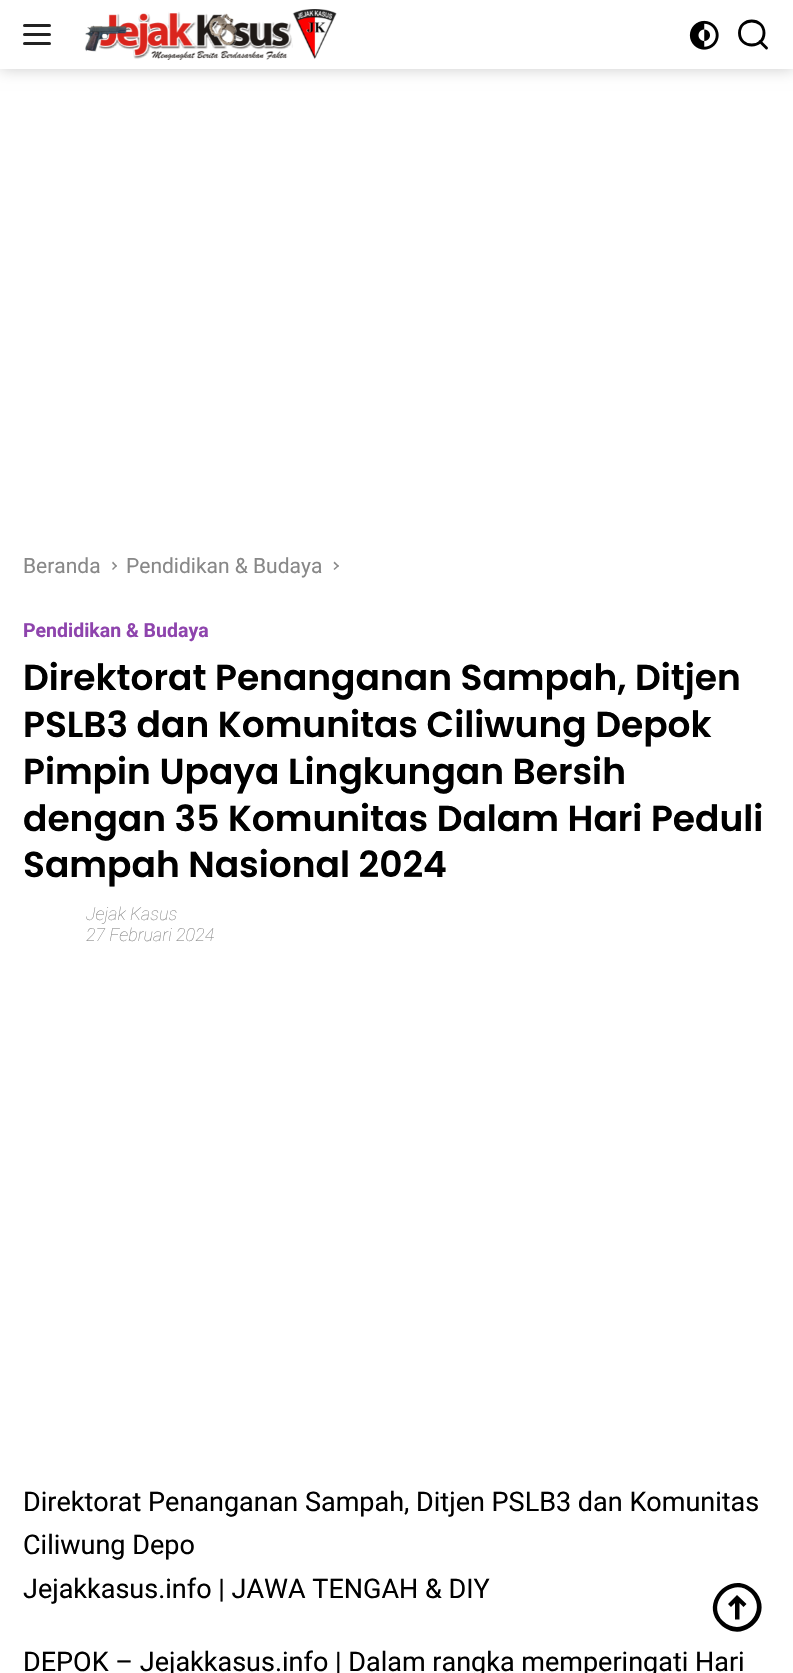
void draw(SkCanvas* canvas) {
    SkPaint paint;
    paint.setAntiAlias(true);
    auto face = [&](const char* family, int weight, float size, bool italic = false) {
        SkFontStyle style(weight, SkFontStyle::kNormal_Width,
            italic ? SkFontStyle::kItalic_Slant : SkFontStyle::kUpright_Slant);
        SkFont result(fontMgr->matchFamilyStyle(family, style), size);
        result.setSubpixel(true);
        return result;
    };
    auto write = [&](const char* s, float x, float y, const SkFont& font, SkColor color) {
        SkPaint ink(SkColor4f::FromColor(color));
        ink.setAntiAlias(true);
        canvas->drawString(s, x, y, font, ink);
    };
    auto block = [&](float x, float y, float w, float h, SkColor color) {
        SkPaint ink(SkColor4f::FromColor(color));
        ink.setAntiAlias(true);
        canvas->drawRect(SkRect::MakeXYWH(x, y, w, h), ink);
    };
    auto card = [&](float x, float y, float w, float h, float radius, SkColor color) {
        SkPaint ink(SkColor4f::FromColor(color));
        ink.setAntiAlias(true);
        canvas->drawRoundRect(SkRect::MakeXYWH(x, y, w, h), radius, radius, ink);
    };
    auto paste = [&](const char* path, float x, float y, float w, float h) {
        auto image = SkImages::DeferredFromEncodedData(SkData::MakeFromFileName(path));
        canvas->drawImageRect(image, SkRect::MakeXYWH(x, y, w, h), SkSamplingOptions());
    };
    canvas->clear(SK_ColorWHITE);
    paint.setColor(SkColorSetARGB(51, 0, 0, 0));
    paint.setMaskFilter(SkMaskFilter::MakeBlur(kNormal_SkBlurStyle, 7.5f));
    canvas->drawRect(SkRect::MakeXYWH(0, 0, 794, 69), paint);
    paint.setMaskFilter(nullptr);
    block(0, 0, 793, 69, SK_ColorWHITE);
    card(23, 24, 28, 3, 1.5f, SkColorSetRGB(34, 34, 34));
    card(23, 33, 28, 3, 1.5f, SkColorSetRGB(34, 34, 34));
    card(23, 42, 28, 3, 1.5f, SkColorSetRGB(34, 34, 34));
    paste("pic1.png", 85, 9, 252, 51);
    paste("pic2.png", 689, 20, 30, 30);
    paint.setStyle(SkPaint::kStroke_Style);
    paint.setStrokeWidth(2.9f);
    paint.setStrokeCap(SkPaint::kRound_Cap);
    paint.setColor(SK_ColorBLACK);
    canvas->drawPath(SkPathBuilder().moveTo(766.5f, 48).lineTo(760, 41.5f).moveTo(764, 33).cubicTo(764, 49, 739.5f, 49, 739.5f, 33).cubicTo(739.5f, 17, 764, 17, 764, 33).close().detach(), paint);
    auto kFont1 = face("Roboto", 400, 21);
    write("Beranda", 23, 573, kFont1, SkColorSetRGB(136, 136, 136));
    paint.setStyle(SkPaint::kFill_Style);
    paint.setColor(SkColorSetRGB(136, 136, 136));
    canvas->drawPath(SkPathBuilder().moveTo(112, 563).lineTo(113, 561.5f).lineTo(117, 566).lineTo(116, 567).close().detach(), paint);
    canvas->drawPath(SkPathBuilder().moveTo(112, 569).lineTo(116, 565).lineTo(117, 566).lineTo(113, 570).close().detach(), paint);
    write("Pendidikan & Budaya", 126, 573, kFont1, SkColorSetRGB(136, 136, 136));
    canvas->drawPath(SkPathBuilder().moveTo(333.5f, 563).lineTo(334.5f, 561.5f).lineTo(339, 566).lineTo(338, 567).close().detach(), paint);
    canvas->drawPath(SkPathBuilder().moveTo(333.5f, 569).lineTo(338, 565).lineTo(339, 566).lineTo(334.5f, 570).close().detach(), paint);
    auto kFont2 = face("Roboto", 700, 19.5f);
    write("Pendidikan & Budaya", 23, 637, kFont2, SkColorSetRGB(142, 68, 173));
    auto kFont3 = face("Poppins", 600, 36);
    write("Direktorat Penanganan Sampah, Ditjen", 23, 690, kFont3, SK_ColorBLACK);
    write("PSLB3 dan Komunitas Ciliwung Depok", 23, 737, kFont3, SK_ColorBLACK);
    write("Pimpin Upaya Lingkungan Bersih", 23, 784, kFont3, SK_ColorBLACK);
    write("dengan 35 Komunitas Dalam Hari Peduli", 23, 831, kFont3, SK_ColorBLACK);
    write("Sampah Nasional 2024", 23, 877, kFont3, SK_ColorBLACK);
    auto kFont4 = face("Roboto", 100, 18, true);
    write("Jejak Kasus", 86, 920, kFont4, SkColorSetRGB(136, 136, 136));
    write("27 Februari 2024", 86, 941, kFont4, SkColorSetRGB(136, 136, 136));
    auto kFont5 = face("Roboto", 400, 27);
    write("Direktorat Penanganan Sampah, Ditjen PSLB3 dan Komunitas", 23, 1511, kFont5, SK_ColorBLACK);
    write("Ciliwung Depo", 23, 1554, kFont5, SK_ColorBLACK);
    write("Jejakkasus.info | JAWA TENGAH & DIY", 23, 1598, kFont5, SK_ColorBLACK);
    write("DEPOK – Jejakkasus.info | Dalam rangka memperingati Hari", 23, 1671, kFont5, SK_ColorBLACK);
    paint.setColor(SK_ColorBLACK);
    canvas->drawPath(SkPathBuilder().moveTo(743.5f, 1607).lineTo(746.5f, 1604).lineTo(737, 1595).lineTo(728, 1604).lineTo(731, 1607).lineTo(735, 1603).lineTo(735, 1619.5f).lineTo(739.5f, 1619.5f).lineTo(739.5f, 1603).close().detach(), paint);
    canvas->drawPath(SkPathBuilder(SkPathFillType::kEvenOdd).moveTo(754, 1590).cubicTo(732, 1568, 698, 1602, 720, 1624).cubicTo(743, 1647, 777, 1613, 754, 1590).close().moveTo(751, 1593).cubicTo(733, 1575, 705, 1603, 723, 1621).cubicTo(742, 1639, 769, 1612, 751, 1593).close().detach(), paint);
}
